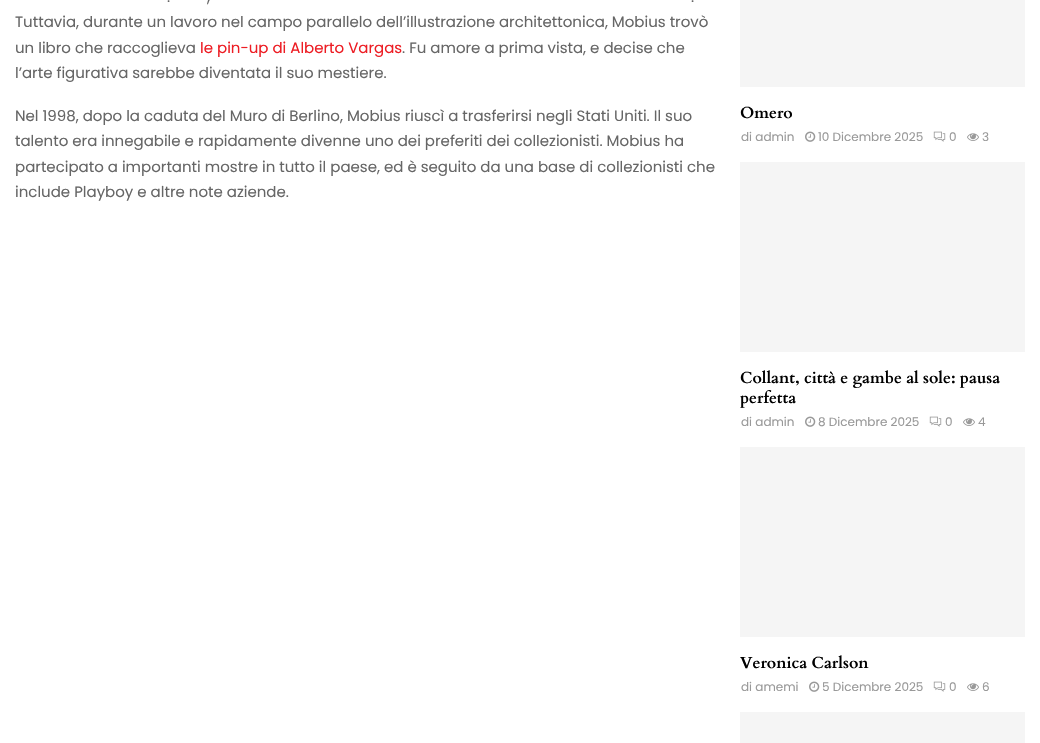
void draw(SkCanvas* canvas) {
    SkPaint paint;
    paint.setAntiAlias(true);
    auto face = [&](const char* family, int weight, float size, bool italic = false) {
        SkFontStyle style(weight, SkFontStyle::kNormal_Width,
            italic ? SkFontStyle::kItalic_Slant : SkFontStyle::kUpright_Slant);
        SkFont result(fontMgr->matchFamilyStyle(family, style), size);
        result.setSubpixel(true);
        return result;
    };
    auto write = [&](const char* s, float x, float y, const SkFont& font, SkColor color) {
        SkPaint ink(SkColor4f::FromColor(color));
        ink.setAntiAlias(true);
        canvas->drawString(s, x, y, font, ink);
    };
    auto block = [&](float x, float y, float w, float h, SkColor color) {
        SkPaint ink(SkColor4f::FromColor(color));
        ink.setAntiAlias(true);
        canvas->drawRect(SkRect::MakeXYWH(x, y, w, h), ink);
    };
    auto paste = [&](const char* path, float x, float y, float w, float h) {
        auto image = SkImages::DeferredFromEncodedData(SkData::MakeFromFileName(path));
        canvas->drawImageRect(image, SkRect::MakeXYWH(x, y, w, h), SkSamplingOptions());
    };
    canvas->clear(SK_ColorWHITE);
    auto kFont1 = face("Poppins", 400, 15);
    write(".", 167, 2, kFont1, SkColorSetRGB(102, 102, 102));
    write(",", 207, 2, kFont1, SkColorSetRGB(102, 102, 102));
    write(".", 691, 2, kFont1, SkColorSetRGB(102, 102, 102));
    write("Tuttavia, durante un lavoro nel campo parallelo dell’illustrazione architettonica, Mobius trovò", 15, 27, kFont1, SkColorSetRGB(102, 102, 102));
    write("un libro che raccoglieva", 15, 53, kFont1, SkColorSetRGB(102, 102, 102));
    write("le pin-up di Alberto Vargas", 200, 53, kFont1, SkColorSetRGB(237, 29, 36));
    write(". Fu amore a prima vista, e decise che", 402, 53, kFont1, SkColorSetRGB(102, 102, 102));
    write("l’arte figurativa sarebbe diventata il suo mestiere.", 15, 78, kFont1, SkColorSetRGB(102, 102, 102));
    write("Nel 1998, dopo la caduta del Muro di Berlino, Mobius riuscì a trasferirsi negli Stati Uniti. Il suo", 15, 121, kFont1, SkColorSetRGB(102, 102, 102));
    write("talento era innegabile e rapidamente divenne uno dei preferiti dei collezionisti. Mobius ha", 15, 146, kFont1, SkColorSetRGB(102, 102, 102));
    write("partecipato a importanti mostre in tutto il paese, ed è seguito da una base di collezionisti che", 15, 172, kFont1, SkColorSetRGB(102, 102, 102));
    write("include Playboy e altre note aziende.", 15, 197, kFont1, SkColorSetRGB(102, 102, 102));
    block(740, 0, 285, 87, SkColorSetRGB(245, 245, 245));
    auto kFont2 = face("Cardo", 700, 16);
    write("Omero", 740, 118, kFont2, SK_ColorBLACK);
    auto kFont3 = face("Poppins", 400, 12);
    write("di admin", 741, 141, kFont3, SkColorSetRGB(153, 153, 153));
    paste("pic1.png", 805, 131, 11, 11);
    write("10 Dicembre 2025", 818, 141, kFont3, SkColorSetRGB(153, 153, 153));
    paste("pic2.png", 933, 131, 13, 11);
    write("0", 949, 141, kFont3, SkColorSetRGB(153, 153, 153));
    paste("pic3.png", 967, 133, 12, 8);
    write("3", 982, 141, kFont3, SkColorSetRGB(153, 153, 153));
    block(740, 162, 285, 190, SkColorSetRGB(245, 245, 245));
    write("Collant, città e gambe al sole: pausa", 740, 383, kFont2, SK_ColorBLACK);
    write("perfetta", 740, 403, kFont2, SK_ColorBLACK);
    write("di admin", 741, 426, kFont3, SkColorSetRGB(153, 153, 153));
    paste("pic1.png", 805, 416, 11, 11);
    write("8 Dicembre 2025", 818, 426, kFont3, SkColorSetRGB(153, 153, 153));
    paste("pic2.png", 929, 416, 13, 11);
    write("0", 945, 426, kFont3, SkColorSetRGB(153, 153, 153));
    paste("pic3.png", 963, 418, 12, 8);
    write("4", 978, 426, kFont3, SkColorSetRGB(153, 153, 153));
    block(740, 447, 285, 190, SkColorSetRGB(245, 245, 245));
    write("Veronica Carlson", 740, 668, kFont2, SK_ColorBLACK);
    write("di amemi", 741, 691, kFont3, SkColorSetRGB(153, 153, 153));
    paste("pic1.png", 809, 681, 11, 11);
    write("5 Dicembre 2025", 822, 691, kFont3, SkColorSetRGB(153, 153, 153));
    paste("pic2.png", 933, 681, 13, 11);
    write("0", 949, 691, kFont3, SkColorSetRGB(153, 153, 153));
    paste("pic3.png", 967, 683, 12, 8);
    write("6", 982, 691, kFont3, SkColorSetRGB(153, 153, 153));
    block(740, 712, 285, 31, SkColorSetRGB(245, 245, 245));
}
